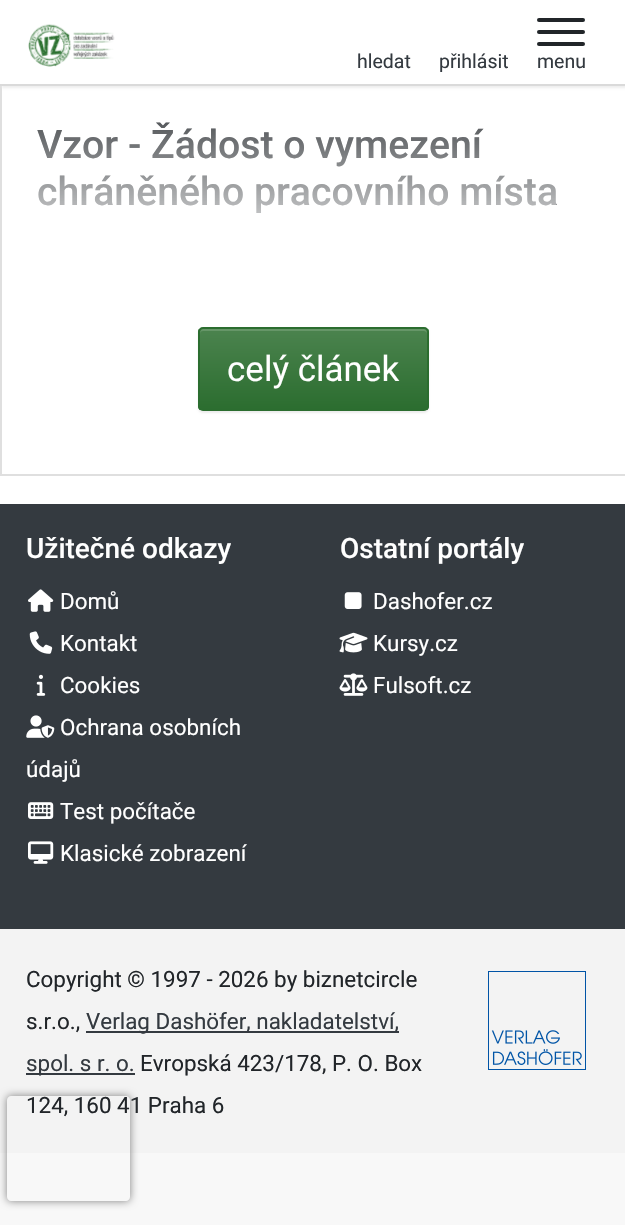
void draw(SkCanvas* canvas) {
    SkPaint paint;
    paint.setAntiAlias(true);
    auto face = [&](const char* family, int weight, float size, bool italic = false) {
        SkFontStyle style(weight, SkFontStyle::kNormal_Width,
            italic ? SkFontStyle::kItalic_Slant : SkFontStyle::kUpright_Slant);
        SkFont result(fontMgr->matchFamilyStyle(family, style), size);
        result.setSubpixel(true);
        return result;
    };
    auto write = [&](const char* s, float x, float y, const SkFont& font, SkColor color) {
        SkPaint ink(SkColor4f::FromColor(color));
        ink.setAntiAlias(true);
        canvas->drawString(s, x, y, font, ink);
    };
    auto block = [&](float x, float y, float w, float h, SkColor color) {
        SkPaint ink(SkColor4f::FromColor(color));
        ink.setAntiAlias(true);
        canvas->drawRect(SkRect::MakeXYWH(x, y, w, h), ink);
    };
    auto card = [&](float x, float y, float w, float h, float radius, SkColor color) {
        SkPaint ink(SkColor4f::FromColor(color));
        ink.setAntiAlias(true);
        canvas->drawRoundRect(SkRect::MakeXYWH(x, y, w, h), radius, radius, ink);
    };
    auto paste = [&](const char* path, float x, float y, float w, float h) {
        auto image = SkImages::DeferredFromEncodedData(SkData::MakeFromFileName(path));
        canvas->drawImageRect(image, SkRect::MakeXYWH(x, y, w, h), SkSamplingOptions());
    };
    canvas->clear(SkColorSetRGB(248, 248, 248));
    paint.setColor(SK_ColorWHITE);
    canvas->drawRect(SkRect::MakeXYWH(1, 85, 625, 390), paint);
    paint.setStyle(SkPaint::kStroke_Style);
    paint.setStrokeWidth(2);
    paint.setColor(SkColorSetRGB(223, 223, 223));
    canvas->drawRect(SkRect::MakeXYWH(1, 85, 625, 390), paint);
    paint.setStyle(SkPaint::kFill_Style);
    paint.setColor(SkColorSetRGB(238, 238, 238));
    paint.setMaskFilter(SkMaskFilter::MakeBlur(kNormal_SkBlurStyle, 1));
    canvas->drawRect(SkRect::MakeXYWH(2, 2, 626, 86), paint);
    paint.setMaskFilter(nullptr);
    block(0, 0, 625, 84, SK_ColorWHITE);
    block(0, 84, 625, 2, SkColorSetRGB(218, 218, 218));
    paste("pic1.png", 28, 24, 87, 43);
    auto kFont1 = face("Roboto", 400, 19.5f);
    write("hledat", 357, 68, kFont1, SkColorSetRGB(52, 58, 64));
    write("přihlásit", 439, 68, kFont1, SkColorSetRGB(52, 58, 64));
    card(537, 18, 48, 4, 2, SkColorSetRGB(33, 37, 41));
    card(537, 30, 48, 4, 2, SkColorSetRGB(33, 37, 41));
    card(537, 42, 48, 4, 2, SkColorSetRGB(33, 37, 41));
    write("menu", 537, 68, kFont1, SkColorSetRGB(52, 58, 64));
    auto kFont2 = face("Roboto", 500, 39.25f);
    write("Vzor - Žádost o vymezení", 37, 158, kFont2, SkColorSetRGB(33, 37, 41));
    write("chráněného pracovního místa", 37, 205, kFont2, SkColorSetRGB(33, 37, 41));
    {
        const SkColor colors[] = {SkColorSetARGB(0, 255, 255, 255), SK_ColorWHITE};
        const float stops[] = {0, 1};
        const SkPoint ends[] = {{313, 75}, {313, 271}};
        paint.setShader(SkGradientShader::MakeLinear(ends, colors, stops, 2, SkTileMode::kClamp));
        paint.setAlpha(255);
    }
    canvas->drawRect(SkRect::MakeXYWH(37, 122, 519, 91), paint);
    paint.setShader(nullptr);
    paint.setColor(SkColorSetARGB(18, 0, 0, 0));
    paint.setMaskFilter(SkMaskFilter::MakeBlur(kNormal_SkBlurStyle, 1));
    canvas->drawRoundRect(SkRect::MakeXYWH(198, 329, 231, 84), 5, 5, paint);
    paint.setMaskFilter(nullptr);
    canvas->save();
    canvas->clipPath(SkPathBuilder().moveTo(203, 327).lineTo(424, 327).cubicTo(427, 327, 429, 329, 429, 332).lineTo(429, 406).cubicTo(429, 409, 427, 411, 424, 411).lineTo(203, 411).cubicTo(200, 411, 198, 409, 198, 406).lineTo(198, 332).cubicTo(198, 329, 200, 327, 203, 327).close().detach(), true);
    {
        const SkColor colors[] = {SkColorSetRGB(75, 131, 78), SkColorSetRGB(43, 109, 47)};
        const float stops[] = {0, 1};
        const SkPoint ends[] = {{313, 329}, {313, 410}};
        paint.setShader(SkGradientShader::MakeLinear(ends, colors, stops, 2, SkTileMode::kClamp));
        paint.setAlpha(255);
    }
    canvas->drawRect(SkRect::MakeXYWH(198, 329, 231, 81), paint);
    canvas->restore();
    paint.setShader(nullptr);
    paint.setColor(SkColorSetRGB(102, 150, 104));
    canvas->drawPath(SkPathBuilder().moveTo(203, 331).lineTo(424, 331).cubicTo(425, 331, 427, 332, 427, 334).cubicTo(427, 331, 426, 329, 423, 329).lineTo(204, 329).cubicTo(201, 329, 200, 331, 200, 334).cubicTo(200, 332, 201, 331, 203, 331).close().detach(), paint);
    paint.setStyle(SkPaint::kStroke_Style);
    paint.setColor(SkColorSetRGB(43, 109, 47));
    canvas->drawRoundRect(SkRect::MakeXYWH(199, 328, 229, 82), 4, 4, paint);
    auto kFont3 = face("Roboto", 400, 35);
    write("celý článek", 227, 381, kFont3, SK_ColorWHITE);
    block(0, 476, 625, 28, SK_ColorWHITE);
    block(0, 504, 625, 425, SkColorSetRGB(52, 58, 64));
    auto kFont4 = face("Roboto", 500, 28);
    write("Užitečné odkazy", 26, 558, kFont4, SK_ColorWHITE);
    paste("pic2.png", 28, 589, 26, 23);
    auto kFont5 = face("Roboto", 400, 22.4f);
    write("Domů", 60, 609, kFont5, SK_ColorWHITE);
    paste("pic3.png", 29, 631, 24, 23);
    write("Kontakt", 60, 651, kFont5, SK_ColorWHITE);
    paste("pic4.png", 36, 674, 10, 22);
    write("Cookies", 60, 693, kFont5, SK_ColorWHITE);
    paste("pic5.png", 26, 715, 29, 23);
    write("Ochrana osobních", 60, 735, kFont5, SK_ColorWHITE);
    write("údajů", 26, 777, kFont5, SK_ColorWHITE);
    paste("pic6.png", 28, 802, 26, 17);
    write("Test počítače", 60, 819, kFont5, SK_ColorWHITE);
    paste("pic7.png", 28, 841, 26, 23);
    write("Klasické zobrazení", 60, 861, kFont5, SK_ColorWHITE);
    write("Ostatní portály", 340, 558, kFont4, SK_ColorWHITE);
    paste("pic8.png", 344, 592, 18, 17);
    write("Dashofer.cz", 373, 609, kFont5, SK_ColorWHITE);
    paste("pic9.png", 339, 632, 29, 21);
    write("Kursy.cz", 373, 651, kFont5, SK_ColorWHITE);
    paste("pic10.png", 339, 673, 29, 23);
    write("Fulsoft.cz", 373, 693, kFont5, SK_ColorWHITE);
    block(0, 929, 625, 224, SkColorSetRGB(243, 243, 243));
    write("Copyright © 1997 - 2026 by biznetcircle", 26, 987, kFont5, SkColorSetRGB(33, 37, 41));
    write("s.r.o.,", 26, 1029, kFont5, SkColorSetRGB(33, 37, 41));
    block(86, 1031, 313, 2, SkColorSetRGB(52, 58, 64));
    write("Verlag Dashöfer, nakladatelství,", 86, 1029, kFont5, SkColorSetRGB(52, 58, 64));
    block(26, 1073, 109, 2, SkColorSetRGB(52, 58, 64));
    write("spol. s r. o.", 26, 1071, kFont5, SkColorSetRGB(52, 58, 64));
    write("Evropská 423/178, P. O. Box", 140, 1071, kFont5, SkColorSetRGB(33, 37, 41));
    write("124, 160 41 Praha 6", 26, 1113, kFont5, SkColorSetRGB(33, 37, 41));
    paste("pic11.png", 488, 971, 98, 99);
    canvas->save();
    canvas->clipPath(SkPathBuilder(SkPathFillType::kEvenOdd).moveTo(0, 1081).lineTo(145, 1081).lineTo(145, 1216).lineTo(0, 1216).close().moveTo(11, 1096).lineTo(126, 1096).cubicTo(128, 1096, 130, 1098, 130, 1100).lineTo(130, 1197).cubicTo(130, 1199, 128, 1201, 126, 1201).lineTo(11, 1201).cubicTo(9, 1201, 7, 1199, 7, 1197).lineTo(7, 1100).cubicTo(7, 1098, 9, 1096, 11, 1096).close().detach(), true);
    paint.setStyle(SkPaint::kFill_Style);
    paint.setColor(SkColorSetRGB(128, 128, 128));
    paint.setMaskFilter(SkMaskFilter::MakeBlur(kNormal_SkBlurStyle, 4.5f));
    canvas->drawRoundRect(SkRect::MakeXYWH(7, 1096, 123, 105), 4, 4, paint);
    paint.setMaskFilter(nullptr);
    canvas->restore();
}
